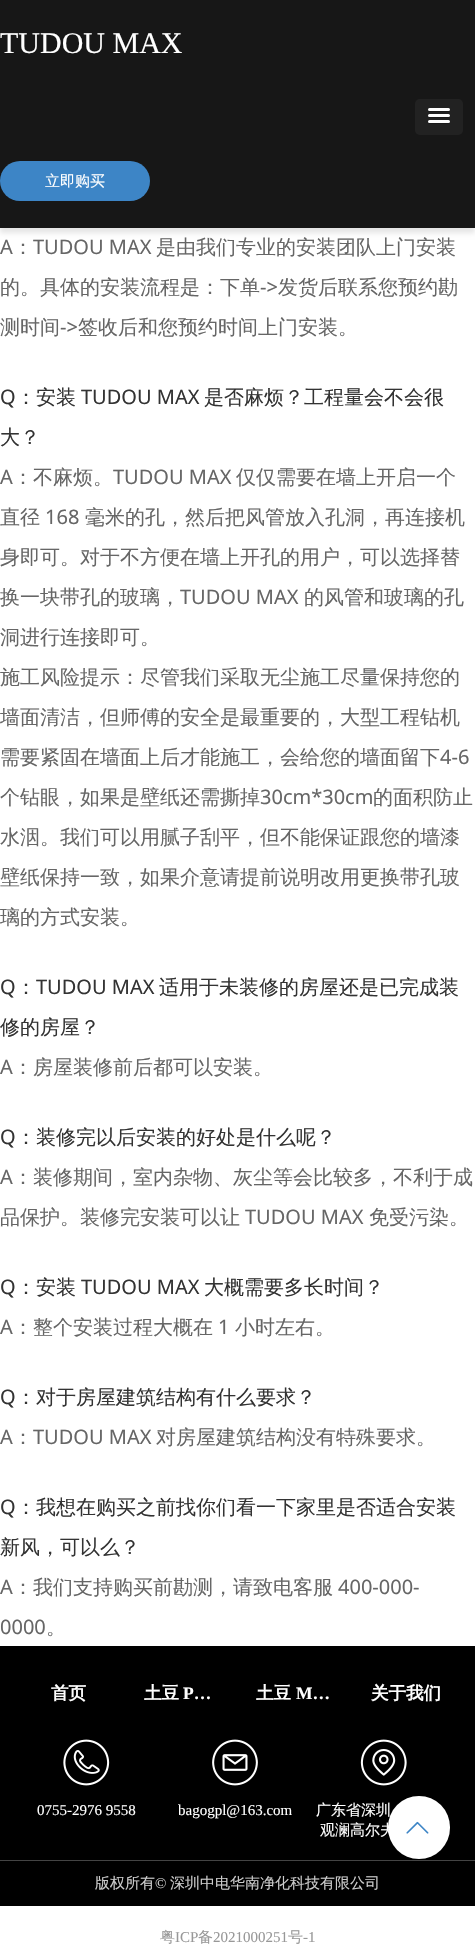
void draw(SkCanvas* canvas) {
    SkPaint paint;
    paint.setAntiAlias(true);
    auto face = [&](const char* family, int weight, float size, bool italic = false) {
        SkFontStyle style(weight, SkFontStyle::kNormal_Width,
            italic ? SkFontStyle::kItalic_Slant : SkFontStyle::kUpright_Slant);
        SkFont result(fontMgr->matchFamilyStyle(family, style), size);
        result.setSubpixel(true);
        return result;
    };
    auto write = [&](const char* s, float x, float y, const SkFont& font, SkColor color) {
        SkPaint ink(SkColor4f::FromColor(color));
        ink.setAntiAlias(true);
        canvas->drawString(s, x, y, font, ink);
    };
    auto block = [&](float x, float y, float w, float h, SkColor color) {
        SkPaint ink(SkColor4f::FromColor(color));
        ink.setAntiAlias(true);
        canvas->drawRect(SkRect::MakeXYWH(x, y, w, h), ink);
    };
    auto card = [&](float x, float y, float w, float h, float radius, SkColor color) {
        SkPaint ink(SkColor4f::FromColor(color));
        ink.setAntiAlias(true);
        canvas->drawRoundRect(SkRect::MakeXYWH(x, y, w, h), radius, radius, ink);
    };
    auto paste = [&](const char* path, float x, float y, float w, float h) {
        auto image = SkImages::DeferredFromEncodedData(SkData::MakeFromFileName(path));
        canvas->drawImageRect(image, SkRect::MakeXYWH(x, y, w, h), SkSamplingOptions());
    };
    canvas->clear(SK_ColorWHITE);
    paint.setColor(SkColorSetARGB(26, 0, 0, 0));
    paint.setMaskFilter(SkMaskFilter::MakeBlur(kNormal_SkBlurStyle, 2.5f));
    canvas->drawRect(SkRect::MakeXYWH(0, 5, 475, 228), paint);
    paint.setMaskFilter(nullptr);
    block(0, 0, 475, 228, SkColorSetRGB(23, 23, 23));
    auto kFont1 = face("Liberation Serif", 400, 30);
    write("TUDOU MAX", 0, 53, kFont1, SK_ColorWHITE);
    card(415, 99, 48, 36, 5, SkColorSetRGB(34, 34, 34));
    paint.setColor(SkColorSetRGB(26, 26, 26));
    canvas->drawPath(SkPathBuilder().moveTo(428, 110).cubicTo(427, 112.5f, 432, 112, 432.5f, 112).lineTo(445.5f, 112).cubicTo(445.5f, 112, 452, 112.5f, 449.5f, 109.5f).lineTo(449, 110).close().detach(), paint);
    card(428, 108, 22, 3, 1.5f, SK_ColorWHITE);
    canvas->drawPath(SkPathBuilder().moveTo(428, 116).cubicTo(427.5f, 118.5f, 432, 118, 432.5f, 118).lineTo(445.5f, 118).cubicTo(446, 118, 451.5f, 118.5f, 450, 115.5f).lineTo(449, 116).close().detach(), paint);
    card(428, 114, 22, 3, 1.5f, SK_ColorWHITE);
    canvas->drawPath(SkPathBuilder().moveTo(428, 122.5f).cubicTo(427.5f, 124.5f, 431.5f, 124, 432.5f, 124).lineTo(445.5f, 124).cubicTo(446, 124, 451, 124.5f, 450, 122).lineTo(449, 122.5f).cubicTo(447, 122.5f, 428.5f, 122.5f, 428, 122.5f).close().detach(), paint);
    card(428, 120, 22, 3, 1.5f, SK_ColorWHITE);
    card(0, 161, 150, 40, 20, SkColorSetRGB(61, 133, 198));
    auto kFont2 = face("WenQuanYi Zen Hei", 500, 15);
    write("立即购买", 45, 186, kFont2, SK_ColorWHITE);
    auto kFont3 = face("Noto Sans", 400, 20);
    write("A", 0, 254, kFont3, SkColorSetRGB(102, 102, 102));
    auto kFont4 = face("WenQuanYi Zen Hei", 500, 20);
    write("：", 13, 254, kFont4, SkColorSetRGB(102, 102, 102));
    write("TUDOU MAX", 33, 254, kFont3, SkColorSetRGB(102, 102, 102));
    write("是由我们专业的安装团队上门安装", 156, 254, kFont4, SkColorSetRGB(102, 102, 102));
    write("的。具体的安装流程是：下单", 0, 294, kFont4, SkColorSetRGB(102, 102, 102));
    write("->", 260, 294, kFont3, SkColorSetRGB(102, 102, 102));
    write("发货后联系您预约勘", 278, 294, kFont4, SkColorSetRGB(102, 102, 102));
    write("测时间", 0, 334, kFont4, SkColorSetRGB(102, 102, 102));
    write("->", 60, 334, kFont3, SkColorSetRGB(102, 102, 102));
    write("签收后和您预约时间上门安装。", 78, 334, kFont4, SkColorSetRGB(102, 102, 102));
    write("Q", 0, 404, kFont3, SkColorSetRGB(51, 51, 51));
    write("：安装", 16, 404, kFont4, SkColorSetRGB(51, 51, 51));
    write("TUDOU MAX", 81, 404, kFont3, SkColorSetRGB(51, 51, 51));
    write("是否麻烦？工程量会不会很", 204, 404, kFont4, SkColorSetRGB(51, 51, 51));
    write("大？", 0, 444, kFont4, SkColorSetRGB(51, 51, 51));
    write("A", 0, 484, kFont3, SkColorSetRGB(102, 102, 102));
    write("：不麻烦。", 13, 484, kFont4, SkColorSetRGB(102, 102, 102));
    write("TUDOU MAX", 113, 484, kFont3, SkColorSetRGB(102, 102, 102));
    write("仅仅需要在墙上开启一个", 236, 484, kFont4, SkColorSetRGB(102, 102, 102));
    write("直径", 0, 524, kFont4, SkColorSetRGB(102, 102, 102));
    write("168", 45, 524, kFont3, SkColorSetRGB(102, 102, 102));
    write("毫米的孔，然后把风管放入孔洞，再连接机", 85, 524, kFont4, SkColorSetRGB(102, 102, 102));
    write("身即可。对于不方便在墙上开孔的用户，可以选择替", 0, 564, kFont4, SkColorSetRGB(102, 102, 102));
    write("换一块带孔的玻璃，", 0, 604, kFont4, SkColorSetRGB(102, 102, 102));
    write("TUDOU MAX", 180, 604, kFont3, SkColorSetRGB(102, 102, 102));
    write("的风管和玻璃的孔", 304, 604, kFont4, SkColorSetRGB(102, 102, 102));
    write("洞进行连接即可。", 0, 644, kFont4, SkColorSetRGB(102, 102, 102));
    write("施工风险提示：尽管我们采取无尘施工尽量保持您的", 0, 684, kFont4, SkColorSetRGB(102, 102, 102));
    write("墙面清洁，但师傅的安全是最重要的，大型工程钻机", 0, 724, kFont4, SkColorSetRGB(102, 102, 102));
    write("需要紧固在墙面上后才能施工，会给您的墙面留下", 0, 764, kFont4, SkColorSetRGB(102, 102, 102));
    write("4-6", 440, 764, kFont3, SkColorSetRGB(102, 102, 102));
    write("个钻眼，如果是壁纸还需撕掉", 0, 804, kFont4, SkColorSetRGB(102, 102, 102));
    write("30cm*30cm", 260, 804, kFont3, SkColorSetRGB(102, 102, 102));
    write("的面积防止", 373, 804, kFont4, SkColorSetRGB(102, 102, 102));
    write("水洇。我们可以用腻子刮平，但不能保证跟您的墙漆", 0, 844, kFont4, SkColorSetRGB(102, 102, 102));
    write("壁纸保持一致，如果介意请提前说明改用更换带孔玻", 0, 884, kFont4, SkColorSetRGB(102, 102, 102));
    write("璃的方式安装。", 0, 924, kFont4, SkColorSetRGB(102, 102, 102));
    write("Q", 0, 994, kFont3, SkColorSetRGB(51, 51, 51));
    write("：", 16, 994, kFont4, SkColorSetRGB(51, 51, 51));
    write("TUDOU MAX", 36, 994, kFont3, SkColorSetRGB(51, 51, 51));
    write("适用于未装修的房屋还是已完成装", 159, 994, kFont4, SkColorSetRGB(51, 51, 51));
    write("修的房屋？", 0, 1034, kFont4, SkColorSetRGB(51, 51, 51));
    write("A", 0, 1074, kFont3, SkColorSetRGB(102, 102, 102));
    write("：房屋装修前后都可以安装。", 13, 1074, kFont4, SkColorSetRGB(102, 102, 102));
    write("Q", 0, 1144, kFont3, SkColorSetRGB(51, 51, 51));
    write("：装修完以后安装的好处是什么呢？", 16, 1144, kFont4, SkColorSetRGB(51, 51, 51));
    write("A", 0, 1184, kFont3, SkColorSetRGB(102, 102, 102));
    write("：装修期间，室内杂物、灰尘等会比较多，不利于成", 13, 1184, kFont4, SkColorSetRGB(102, 102, 102));
    write("品保护。装修完安装可以让", 0, 1224, kFont4, SkColorSetRGB(102, 102, 102));
    write("TUDOU MAX", 245, 1224, kFont3, SkColorSetRGB(102, 102, 102));
    write("免受污染。", 369, 1224, kFont4, SkColorSetRGB(102, 102, 102));
    write("Q", 0, 1294, kFont3, SkColorSetRGB(51, 51, 51));
    write("：安装", 16, 1294, kFont4, SkColorSetRGB(51, 51, 51));
    write("TUDOU MAX", 81, 1294, kFont3, SkColorSetRGB(51, 51, 51));
    write("大概需要多长时间？", 204, 1294, kFont4, SkColorSetRGB(51, 51, 51));
    write("A", 0, 1334, kFont3, SkColorSetRGB(102, 102, 102));
    write("：整个安装过程大概在", 13, 1334, kFont4, SkColorSetRGB(102, 102, 102));
    write("1", 218, 1334, kFont3, SkColorSetRGB(102, 102, 102));
    write("小时左右。", 235, 1334, kFont4, SkColorSetRGB(102, 102, 102));
    write("Q", 0, 1404, kFont3, SkColorSetRGB(51, 51, 51));
    write("：对于房屋建筑结构有什么要求？", 16, 1404, kFont4, SkColorSetRGB(51, 51, 51));
    write("A", 0, 1444, kFont3, SkColorSetRGB(102, 102, 102));
    write("：", 13, 1444, kFont4, SkColorSetRGB(102, 102, 102));
    write("TUDOU MAX", 33, 1444, kFont3, SkColorSetRGB(102, 102, 102));
    write("对房屋建筑结构没有特殊要求。", 156, 1444, kFont4, SkColorSetRGB(102, 102, 102));
    write("Q", 0, 1514, kFont3, SkColorSetRGB(51, 51, 51));
    write("：我想在购买之前找你们看一下家里是否适合安装", 16, 1514, kFont4, SkColorSetRGB(51, 51, 51));
    write("新风，可以么？", 0, 1554, kFont4, SkColorSetRGB(51, 51, 51));
    write("A", 0, 1594, kFont3, SkColorSetRGB(102, 102, 102));
    write("：我们支持购买前勘测，请致电客服", 13, 1594, kFont4, SkColorSetRGB(102, 102, 102));
    write("400-000-", 338, 1594, kFont3, SkColorSetRGB(102, 102, 102));
    write("0000", 0, 1634, kFont3, SkColorSetRGB(102, 102, 102));
    write("。", 46, 1634, kFont4, SkColorSetRGB(102, 102, 102));
    block(0, 1646, 475, 260, SK_ColorBLACK);
    auto kFont5 = face("WenQuanYi Zen Hei", 700, 17.5f);
    write("首页", 51, 1699, kFont5, SK_ColorWHITE);
    write("土豆", 144, 1699, kFont5, SK_ColorWHITE);
    auto kFont6 = face("Liberation Serif", 700, 17.5f);
    write("P…", 183, 1699, kFont6, SK_ColorWHITE);
    write("土豆", 256, 1699, kFont5, SK_ColorWHITE);
    write("M…", 296, 1699, kFont6, SK_ColorWHITE);
    write("关于我们", 371, 1699, kFont5, SK_ColorWHITE);
    paste("pic1.png", 63, 1739, 47, 47);
    auto kFont7 = face("Liberation Serif", 400, 15);
    write("0755-2976 9558", 37, 1815, kFont7, SK_ColorWHITE);
    paste("pic2.png", 212, 1739, 46, 47);
    write("bagogpl@163.com", 178, 1815, kFont7, SK_ColorWHITE);
    paste("pic3.png", 360, 1739, 47, 47);
    write("广东省深圳", 316, 1815, kFont2, SK_ColorWHITE);
    write("观澜高尔夫", 320, 1835, kFont2, SK_ColorWHITE);
    block(0, 1860, 475, 1, SkColorSetRGB(68, 68, 68));
    write("版权所有", 95, 1888, kFont2, SkColorSetRGB(204, 204, 204));
    write("©", 155, 1888, kFont7, SkColorSetRGB(204, 204, 204));
    write("深圳中电华南净化科技有限公司", 170, 1888, kFont2, SkColorSetRGB(204, 204, 204));
    card(388, 1796, 62, 63, 31, SK_ColorWHITE);
    paste("pic4.png", 406, 1821, 23, 13);
    write("粤", 160, 1942, kFont2, SkColorSetRGB(152, 152, 152));
    write("ICP", 175, 1942, kFont7, SkColorSetRGB(152, 152, 152));
    write("备", 198, 1942, kFont2, SkColorSetRGB(152, 152, 152));
    write("2021000251", 213, 1942, kFont7, SkColorSetRGB(152, 152, 152));
    write("号", 288, 1942, kFont2, SkColorSetRGB(152, 152, 152));
    write("-1", 303, 1942, kFont7, SkColorSetRGB(152, 152, 152));
}
